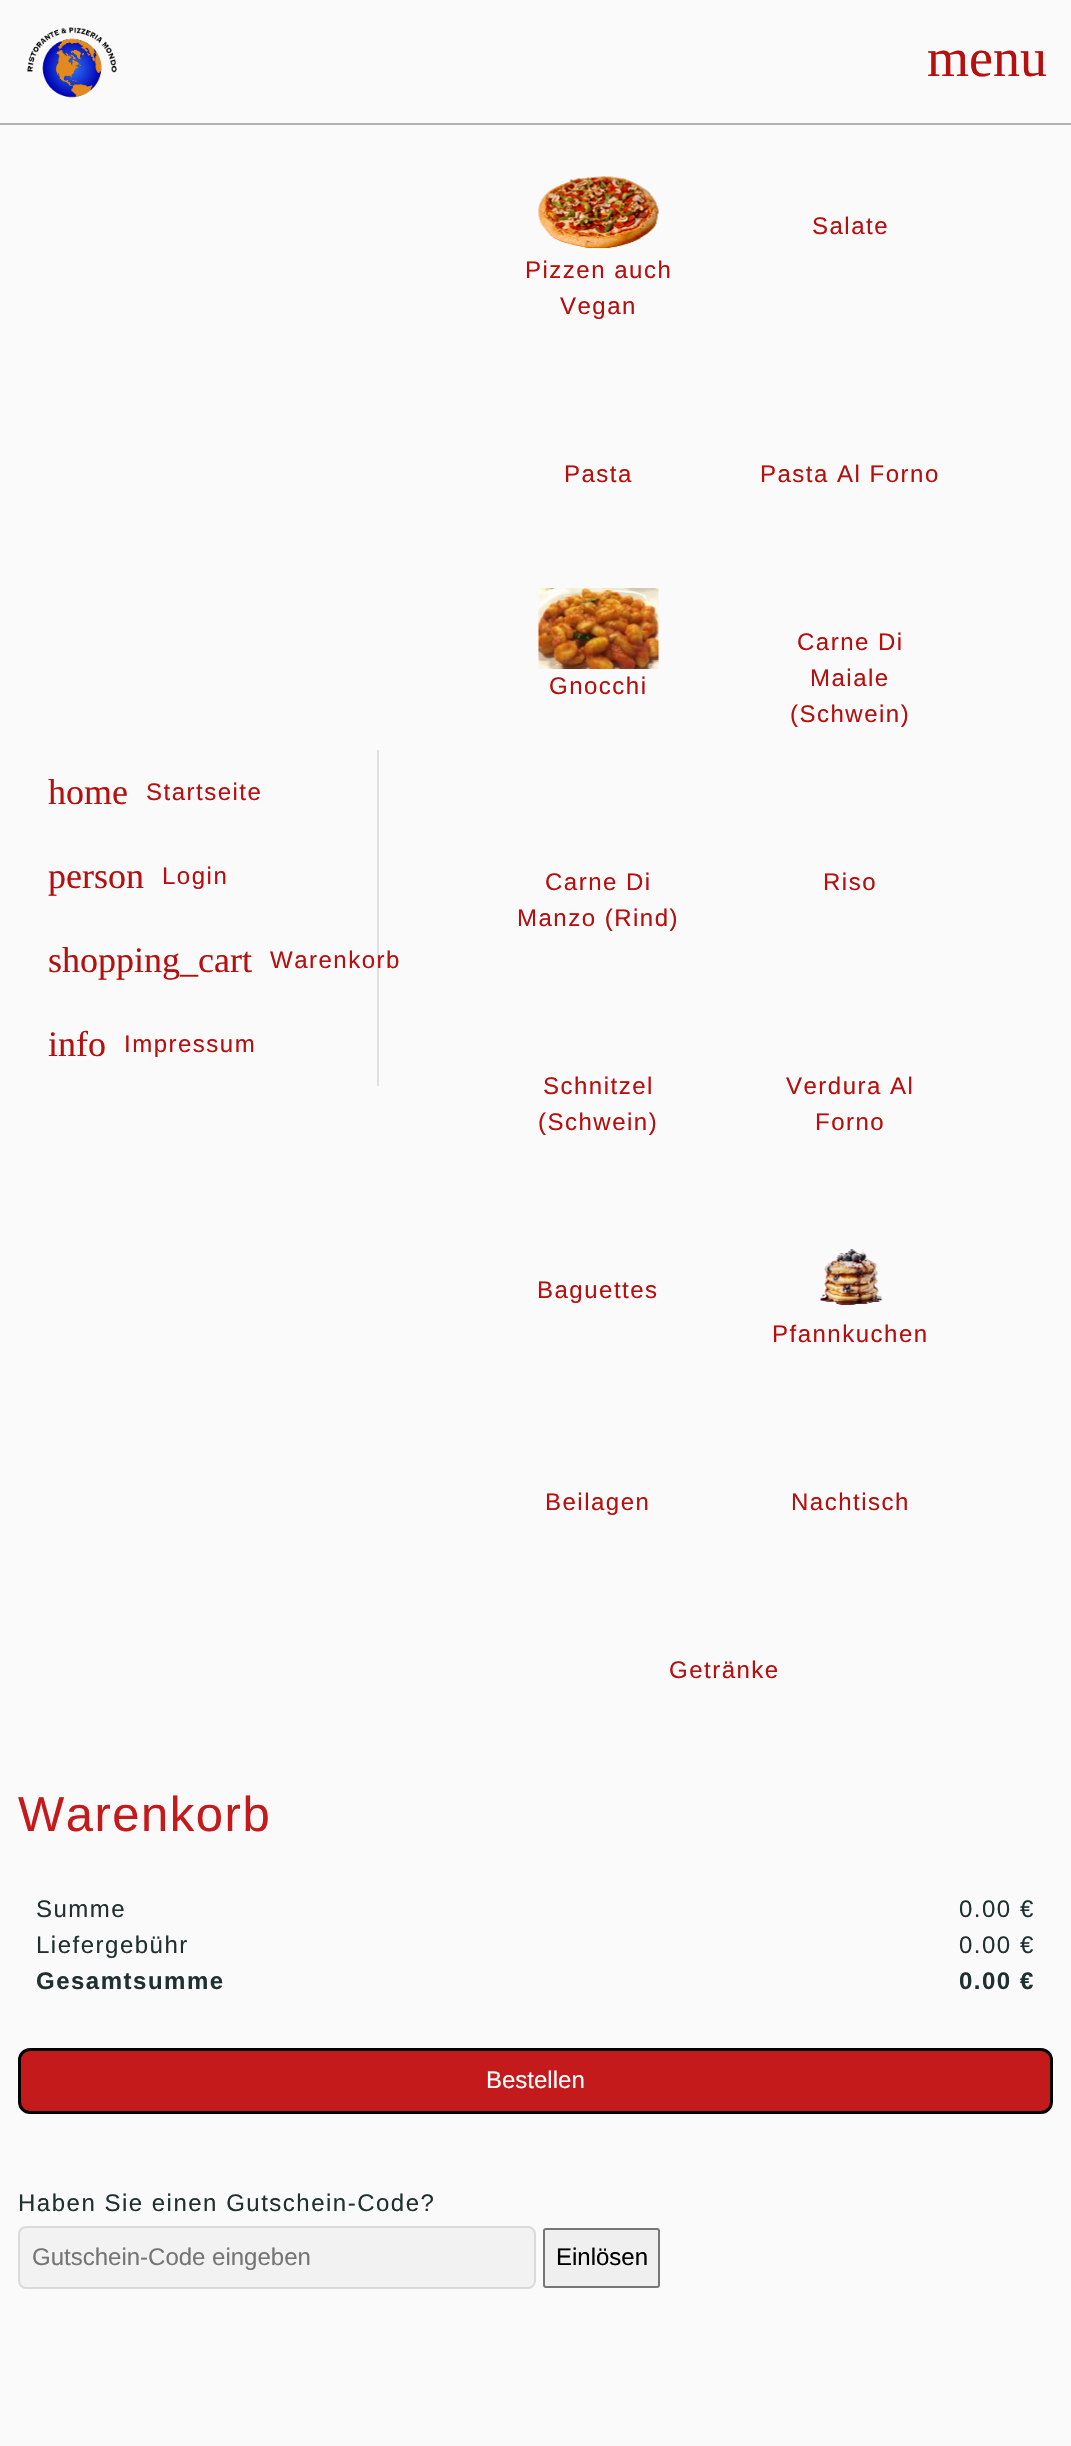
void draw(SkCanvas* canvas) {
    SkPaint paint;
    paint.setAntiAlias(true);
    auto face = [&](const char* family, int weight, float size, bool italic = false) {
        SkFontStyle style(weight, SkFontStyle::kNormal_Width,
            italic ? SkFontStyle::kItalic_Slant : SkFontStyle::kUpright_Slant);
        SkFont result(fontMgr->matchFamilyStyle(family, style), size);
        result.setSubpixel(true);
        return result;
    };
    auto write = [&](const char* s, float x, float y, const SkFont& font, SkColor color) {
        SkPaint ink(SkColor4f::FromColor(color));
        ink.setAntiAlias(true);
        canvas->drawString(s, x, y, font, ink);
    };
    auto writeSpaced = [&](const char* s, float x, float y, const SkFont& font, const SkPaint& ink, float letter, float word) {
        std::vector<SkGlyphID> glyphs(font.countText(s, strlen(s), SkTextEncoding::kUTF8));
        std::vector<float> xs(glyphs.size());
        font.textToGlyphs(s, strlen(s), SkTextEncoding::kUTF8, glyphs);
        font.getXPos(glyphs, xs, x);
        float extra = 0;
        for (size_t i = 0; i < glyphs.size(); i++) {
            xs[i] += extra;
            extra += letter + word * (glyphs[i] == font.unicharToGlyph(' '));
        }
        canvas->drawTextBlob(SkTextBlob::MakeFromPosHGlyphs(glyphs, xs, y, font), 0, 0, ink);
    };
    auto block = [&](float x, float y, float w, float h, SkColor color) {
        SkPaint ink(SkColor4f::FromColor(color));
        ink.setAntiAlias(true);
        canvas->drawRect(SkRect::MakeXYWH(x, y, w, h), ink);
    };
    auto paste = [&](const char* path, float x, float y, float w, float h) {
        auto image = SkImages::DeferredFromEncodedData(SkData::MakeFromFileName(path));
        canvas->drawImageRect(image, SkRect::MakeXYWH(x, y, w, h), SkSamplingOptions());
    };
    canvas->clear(SkColorSetRGB(250, 250, 250));
    block(0, 123, 1071, 2, SkColorSetRGB(177, 177, 177));
    paste("pic1.png", 27, 27, 90, 71);
    auto kFont1 = face("Liberation Serif", 400, 54);
    write("menu", 927, 76, kFont1, SkColorSetRGB(182, 15, 15));
    block(377, 750, 2, 336, SkColorSetRGB(223, 223, 223));
    auto kFont2 = face("Liberation Serif", 400, 36);
    write("home", 48, 804, kFont2, SkColorSetRGB(182, 15, 15));
    auto kFont3 = face("Liberation Sans", 400, 24);
    paint.setColor(SkColorSetRGB(182, 15, 15));
    writeSpaced("Startseite", 146, 800, kFont3, paint, 1.5f, 0);
    write("person", 48, 888, kFont2, SkColorSetRGB(182, 15, 15));
    writeSpaced("Login", 162, 884, kFont3, paint, 1.5f, 0);
    write("shopping_cart", 48, 972, kFont2, SkColorSetRGB(182, 15, 15));
    writeSpaced("Warenkorb", 270, 968, kFont3, paint, 1.5f, 0);
    write("info", 48, 1056, kFont2, SkColorSetRGB(182, 15, 15));
    writeSpaced("Impressum", 124, 1052, kFont3, paint, 1.5f, 0);
    writeSpaced("Salate", 812, 234, kFont3, paint, 1.5f, 0);
    paste("pic2.png", 538, 176, 121, 73);
    writeSpaced("Pizzen auch", 525, 278, kFont3, paint, 1.5f, 0);
    writeSpaced("Vegan", 560, 314, kFont3, paint, 1.5f, 0);
    writeSpaced("Pasta", 564, 482, kFont3, paint, 1.5f, 0);
    writeSpaced("Pasta Al Forno", 760, 482, kFont3, paint, 1.5f, 0);
    paste("pic3.png", 538, 588, 121, 81);
    writeSpaced("Gnocchi", 549, 694, kFont3, paint, 1.5f, 0);
    writeSpaced("Carne Di", 797, 650, kFont3, paint, 1.5f, 0);
    writeSpaced("Maiale", 810, 686, kFont3, paint, 1.5f, 0);
    writeSpaced("(Schwein)", 790, 722, kFont3, paint, 1.5f, 0);
    writeSpaced("Carne Di", 545, 890, kFont3, paint, 1.5f, 0);
    writeSpaced("Manzo (Rind)", 517, 926, kFont3, paint, 1.5f, 0);
    writeSpaced("Riso", 823, 890, kFont3, paint, 1.5f, 0);
    writeSpaced("Schnitzel", 543, 1094, kFont3, paint, 1.5f, 0);
    writeSpaced("(Schwein)", 538, 1130, kFont3, paint, 1.5f, 0);
    writeSpaced("Verdura Al", 786, 1094, kFont3, paint, 1.5f, 0);
    writeSpaced("Forno", 815, 1130, kFont3, paint, 1.5f, 0);
    writeSpaced("Baguettes", 537, 1298, kFont3, paint, 1.5f, 0);
    paste("pic4.png", 820, 1249, 62, 56);
    writeSpaced("Pfannkuchen", 772, 1342, kFont3, paint, 1.5f, 0);
    writeSpaced("Beilagen", 545, 1510, kFont3, paint, 1.5f, 0);
    writeSpaced("Nachtisch", 791, 1510, kFont3, paint, 1.5f, 0);
    writeSpaced("Getränke", 669, 1678, kFont3, paint, 1.5f, 0);
    auto kFont4 = face("Liberation Sans", 400, 49);
    paint.setColor(SkColorSetRGB(197, 26, 27));
    writeSpaced("Warenkorb", 18, 1831, kFont4, paint, 1.5f, 0);
    paint.setColor(SkColorSetRGB(32, 48, 48));
    writeSpaced("Summe", 36, 1917, kFont3, paint, 1.5f, 0);
    writeSpaced("0.00 €", 959, 1917, kFont3, paint, 1.5f, 0);
    writeSpaced("Liefergebühr", 36, 1953, kFont3, paint, 1.5f, 0);
    writeSpaced("0.00 €", 959, 1953, kFont3, paint, 1.5f, 0);
    auto kFont5 = face("Liberation Sans", 700, 24);
    writeSpaced("Gesamtsumme", 36, 1989, kFont5, paint, 1.5f, 0);
    writeSpaced("0.00 €", 959, 1989, kFont5, paint, 1.5f, 0);
    paint.setColor(SkColorSetRGB(197, 26, 27));
    canvas->drawRoundRect(SkRect::MakeXYWH(19.5f, 2049.5f, 1032, 63), 10.5f, 10.5f, paint);
    paint.setStyle(SkPaint::kStroke_Style);
    paint.setStrokeWidth(3);
    paint.setColor(SK_ColorBLACK);
    canvas->drawRoundRect(SkRect::MakeXYWH(19.5f, 2049.5f, 1032, 63), 10.5f, 10.5f, paint);
    write("Bestellen", 486, 2088, kFont3, SK_ColorWHITE);
    paint.setStyle(SkPaint::kFill_Style);
    paint.setColor(SkColorSetRGB(32, 48, 48));
    writeSpaced("Haben Sie einen Gutschein-Code?", 18, 2211, kFont3, paint, 1.5f, 0);
    paint.setColor(SkColorSetRGB(242, 242, 242));
    canvas->drawRoundRect(SkRect::MakeXYWH(19, 2227, 516, 61), 7, 7, paint);
    paint.setStyle(SkPaint::kStroke_Style);
    paint.setStrokeWidth(2);
    paint.setColor(SkColorSetRGB(218, 218, 218));
    canvas->drawRoundRect(SkRect::MakeXYWH(19, 2227, 516, 61), 7, 7, paint);
    write("Gutschein-Code eingeben", 32, 2265, kFont3, SkColorSetRGB(117, 117, 117));
    paint.setStyle(SkPaint::kFill_Style);
    paint.setColor(SkColorSetRGB(239, 239, 239));
    canvas->drawRoundRect(SkRect::MakeXYWH(544, 2229, 115, 58), 2, 2, paint);
    paint.setStyle(SkPaint::kStroke_Style);
    paint.setColor(SkColorSetRGB(118, 118, 118));
    canvas->drawRoundRect(SkRect::MakeXYWH(544, 2229, 115, 58), 2, 2, paint);
    write("Einlösen", 556, 2265, kFont3, SK_ColorBLACK);
}
